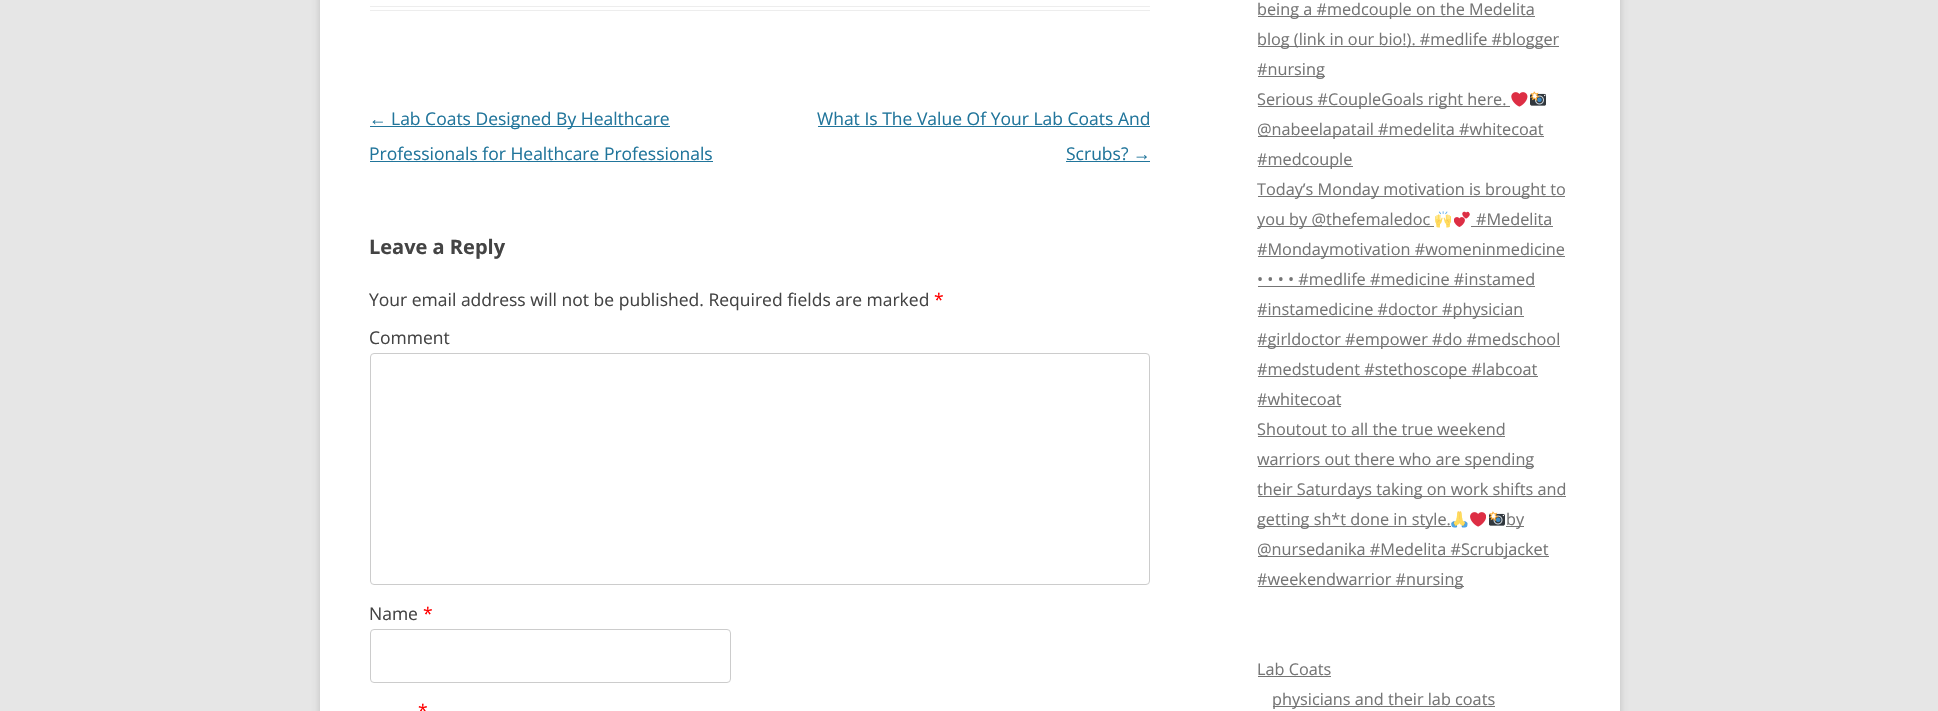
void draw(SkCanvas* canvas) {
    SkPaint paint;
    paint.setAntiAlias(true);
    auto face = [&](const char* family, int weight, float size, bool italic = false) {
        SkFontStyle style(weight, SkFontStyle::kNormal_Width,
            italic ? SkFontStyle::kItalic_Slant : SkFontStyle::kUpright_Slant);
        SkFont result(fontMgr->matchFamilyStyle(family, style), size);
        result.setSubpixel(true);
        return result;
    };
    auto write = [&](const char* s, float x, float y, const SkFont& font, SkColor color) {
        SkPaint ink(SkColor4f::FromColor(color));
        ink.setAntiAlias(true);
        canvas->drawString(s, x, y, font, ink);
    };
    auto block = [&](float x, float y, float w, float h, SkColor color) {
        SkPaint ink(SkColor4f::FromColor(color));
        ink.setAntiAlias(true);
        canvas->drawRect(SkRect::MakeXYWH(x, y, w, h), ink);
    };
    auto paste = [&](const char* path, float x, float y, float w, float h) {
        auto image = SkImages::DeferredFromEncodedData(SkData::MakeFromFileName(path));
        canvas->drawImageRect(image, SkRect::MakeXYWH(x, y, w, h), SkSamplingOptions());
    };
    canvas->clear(SkColorSetRGB(230, 230, 230));
    paint.setColor(SkColorSetARGB(77, 100, 100, 100));
    paint.setMaskFilter(SkMaskFilter::MakeBlur(kNormal_SkBlurStyle, 4));
    canvas->drawRect(SkRect::MakeXYWH(320, -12, 1300, 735), paint);
    paint.setMaskFilter(nullptr);
    block(320, 0, 1300, 711, SK_ColorWHITE);
    block(370, 6, 780, 1, SkColorSetRGB(237, 237, 237));
    block(370, 10, 780, 1, SkColorSetRGB(237, 237, 237));
    auto kFont1 = face("Liberation Sans", 400, 17.5f);
    write("←", 369, 125, kFont1, SkColorSetRGB(33, 117, 155));
    block(370, 126, 300, 1, SkColorSetRGB(33, 117, 155));
    auto kFont2 = face("Open Sans", 400, 17.5f);
    write("Lab Coats Designed By Healthcare", 391, 125, kFont2, SkColorSetRGB(33, 117, 155));
    write("Professionals for Healthcare Professionals", 369, 160, kFont2, SkColorSetRGB(33, 117, 155));
    block(370, 161, 343, 1, SkColorSetRGB(33, 117, 155));
    write("What Is The Value Of Your Lab Coats And", 817, 125, kFont2, SkColorSetRGB(33, 117, 155));
    block(818, 126, 332, 1, SkColorSetRGB(33, 117, 155));
    write("Scrubs?", 1066, 160, kFont2, SkColorSetRGB(33, 117, 155));
    write("→", 1133, 160, kFont1, SkColorSetRGB(33, 117, 155));
    block(1066, 161, 84, 1, SkColorSetRGB(33, 117, 155));
    auto kFont3 = face("Open Sans", 700, 20);
    write("Leave a Reply", 369, 254, kFont3, SkColorSetRGB(68, 68, 68));
    write("Your email address will not be published. Required fields are marked", 369, 306, kFont2, SkColorSetRGB(68, 68, 68));
    write("*", 934, 306, kFont2, SkColorSetRGB(255, 0, 0));
    write("Comment", 369, 344, kFont2, SkColorSetRGB(68, 68, 68));
    paint.setStyle(SkPaint::kStroke_Style);
    paint.setStrokeWidth(1);
    paint.setColor(SkColorSetRGB(204, 204, 204));
    canvas->drawRoundRect(SkRect::MakeXYWH(370.5f, 353.5f, 779, 231), 3.5f, 3.5f, paint);
    write("Name", 369, 620, kFont2, SkColorSetRGB(68, 68, 68));
    write("*", 423, 620, kFont2, SkColorSetRGB(255, 0, 0));
    canvas->drawRoundRect(SkRect::MakeXYWH(370.5f, 629.5f, 360, 53), 3.5f, 3.5f, paint);
    write("*", 418, 717, kFont2, SkColorSetRGB(255, 0, 0));
    block(1258, 16, 277, 1, SkColorSetRGB(117, 117, 117));
    auto kFont4 = face("Open Sans", 400, 16.25f);
    write("being a #medcouple on the Medelita", 1257, 15, kFont4, SkColorSetRGB(117, 117, 117));
    block(1258, 46, 301, 1, SkColorSetRGB(117, 117, 117));
    write("blog (link in our bio!). #medlife #blogger", 1257, 45, kFont4, SkColorSetRGB(117, 117, 117));
    block(1258, 76, 67, 1, SkColorSetRGB(117, 117, 117));
    write("#nursing", 1257, 75, kFont4, SkColorSetRGB(117, 117, 117));
    block(1258, 106, 252, 1, SkColorSetRGB(117, 117, 117));
    write("Serious #CoupleGoals right here.", 1257, 105, kFont4, SkColorSetRGB(117, 117, 117));
    paste("pic1.png", 1511, 92, 17, 15);
    paste("pic2.png", 1530, 91, 16, 15);
    block(1258, 136, 286, 1, SkColorSetRGB(117, 117, 117));
    write("@nabeelapatail #medelita #whitecoat", 1257, 135, kFont4, SkColorSetRGB(117, 117, 117));
    block(1258, 166, 95, 1, SkColorSetRGB(117, 117, 117));
    write("#medcouple", 1257, 165, kFont4, SkColorSetRGB(117, 117, 117));
    block(1258, 196, 307, 1, SkColorSetRGB(117, 117, 117));
    write("Today’s Monday motivation is brought to", 1257, 195, kFont4, SkColorSetRGB(117, 117, 117));
    block(1258, 226, 176, 1, SkColorSetRGB(117, 117, 117));
    write("you by @thefemaledoc", 1257, 225, kFont4, SkColorSetRGB(117, 117, 117));
    paste("pic3.png", 1435, 211, 16, 17);
    paste("pic4.png", 1454, 211, 16, 16);
    write("#Medelita", 1476, 225, kFont4, SkColorSetRGB(117, 117, 117));
    block(1471, 226, 82, 1, SkColorSetRGB(117, 117, 117));
    block(1258, 256, 307, 1, SkColorSetRGB(117, 117, 117));
    write("#Mondaymotivation #womeninmedicine", 1257, 255, kFont4, SkColorSetRGB(117, 117, 117));
    write("• • • • #medlife #medicine #instamed", 1257, 285, kFont4, SkColorSetRGB(117, 117, 117));
    block(1258, 286, 277, 1, SkColorSetRGB(117, 117, 117));
    block(1258, 316, 266, 1, SkColorSetRGB(117, 117, 117));
    write("#instamedicine #doctor #physician", 1257, 315, kFont4, SkColorSetRGB(117, 117, 117));
    block(1258, 346, 302, 1, SkColorSetRGB(117, 117, 117));
    write("#girldoctor #empower #do #medschool", 1257, 345, kFont4, SkColorSetRGB(117, 117, 117));
    block(1258, 376, 280, 1, SkColorSetRGB(117, 117, 117));
    write("#medstudent #stethoscope #labcoat", 1257, 375, kFont4, SkColorSetRGB(117, 117, 117));
    write("#whitecoat", 1257, 405, kFont4, SkColorSetRGB(117, 117, 117));
    block(1258, 406, 83, 1, SkColorSetRGB(117, 117, 117));
    write("Shoutout to all the true weekend", 1257, 435, kFont4, SkColorSetRGB(117, 117, 117));
    block(1258, 436, 247, 1, SkColorSetRGB(117, 117, 117));
    block(1258, 466, 276, 1, SkColorSetRGB(117, 117, 117));
    write("warriors out there who are spending", 1257, 465, kFont4, SkColorSetRGB(117, 117, 117));
    block(1258, 496, 308, 1, SkColorSetRGB(117, 117, 117));
    write("their Saturdays taking on work shifts and", 1257, 495, kFont4, SkColorSetRGB(117, 117, 117));
    block(1258, 526, 193, 1, SkColorSetRGB(117, 117, 117));
    write("getting sh*t done in style.", 1257, 525, kFont4, SkColorSetRGB(117, 117, 117));
    paste("pic5.png", 1451, 511, 17, 17);
    paste("pic6.png", 1470, 512, 16, 15);
    paste("pic7.png", 1489, 511, 16, 15);
    block(1506, 526, 18, 1, SkColorSetRGB(117, 117, 117));
    write("by", 1506, 525, kFont4, SkColorSetRGB(117, 117, 117));
    block(1258, 556, 291, 1, SkColorSetRGB(117, 117, 117));
    write("@nursedanika #Medelita #Scrubjacket", 1257, 555, kFont4, SkColorSetRGB(117, 117, 117));
    block(1258, 586, 206, 1, SkColorSetRGB(117, 117, 117));
    write("#weekendwarrior #nursing", 1257, 585, kFont4, SkColorSetRGB(117, 117, 117));
    write("Lab Coats", 1257, 675, kFont4, SkColorSetRGB(117, 117, 117));
    block(1258, 676, 73, 1, SkColorSetRGB(117, 117, 117));
    block(1273, 706, 222, 1, SkColorSetRGB(117, 117, 117));
    write("physicians and their lab coats", 1272, 705, kFont4, SkColorSetRGB(117, 117, 117));
}
